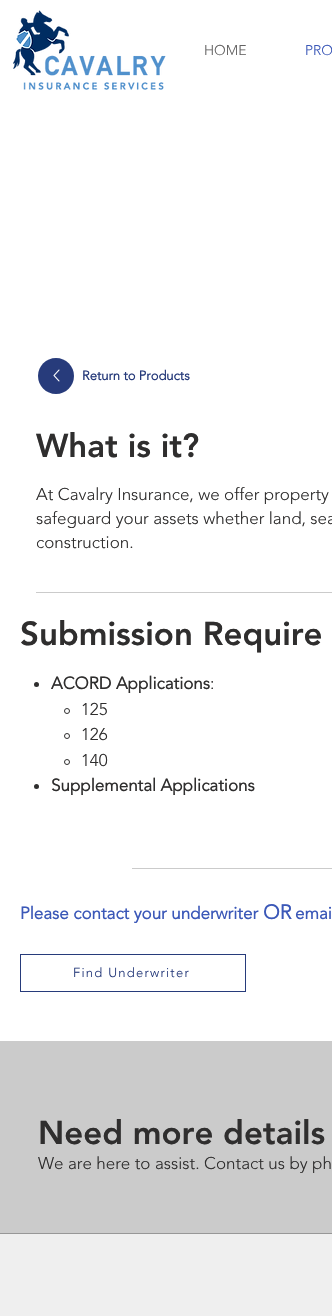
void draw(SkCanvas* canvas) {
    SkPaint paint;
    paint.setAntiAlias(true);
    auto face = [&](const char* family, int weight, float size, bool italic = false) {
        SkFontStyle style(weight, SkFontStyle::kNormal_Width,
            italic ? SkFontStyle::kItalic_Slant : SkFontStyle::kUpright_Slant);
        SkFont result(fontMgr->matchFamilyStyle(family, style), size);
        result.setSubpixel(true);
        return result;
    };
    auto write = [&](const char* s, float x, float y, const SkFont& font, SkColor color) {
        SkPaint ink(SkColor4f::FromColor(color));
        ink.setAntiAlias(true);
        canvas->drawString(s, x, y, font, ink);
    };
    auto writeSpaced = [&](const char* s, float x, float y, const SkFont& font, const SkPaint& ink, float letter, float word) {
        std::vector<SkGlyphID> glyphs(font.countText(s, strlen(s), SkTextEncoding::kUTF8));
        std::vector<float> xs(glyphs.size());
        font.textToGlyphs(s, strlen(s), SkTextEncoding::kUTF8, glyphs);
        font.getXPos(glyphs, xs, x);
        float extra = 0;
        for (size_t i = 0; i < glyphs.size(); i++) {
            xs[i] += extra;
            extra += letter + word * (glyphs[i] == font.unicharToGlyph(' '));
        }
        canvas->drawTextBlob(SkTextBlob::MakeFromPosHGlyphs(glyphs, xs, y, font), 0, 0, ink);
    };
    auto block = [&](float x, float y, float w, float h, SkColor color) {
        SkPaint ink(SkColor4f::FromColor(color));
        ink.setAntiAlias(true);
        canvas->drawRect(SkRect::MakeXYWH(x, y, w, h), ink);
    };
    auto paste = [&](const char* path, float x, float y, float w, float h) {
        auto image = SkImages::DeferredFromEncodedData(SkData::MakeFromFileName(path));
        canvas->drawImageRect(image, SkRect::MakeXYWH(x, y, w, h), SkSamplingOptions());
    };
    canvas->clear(SK_ColorWHITE);
    paste("pic1.png", 13, 10, 153, 80);
    auto kFont1 = face("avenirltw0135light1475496", 300, 14);
    write("HOME", 204, 55, kFont1, SkColorSetRGB(99, 98, 98));
    write("PRO", 305, 55, kFont1, SkColorSetRGB(59, 88, 184));
    paint.setColor(SkColorSetRGB(39, 59, 123));
    canvas->drawPath(SkPathBuilder().moveTo(38, 376).cubicTo(38, 366, 46, 358, 56, 358).cubicTo(66, 358, 74, 366, 74, 376).cubicTo(74, 386, 66, 394, 56, 394).cubicTo(46, 394, 38, 386, 38, 376).close().detach(), paint);
    paste("pic2.png", 53, 369, 7, 13);
    auto kFont2 = face("avenirltw0135light1475496", 700, 13);
    write("Return to Products", 82, 380, kFont2, SkColorSetRGB(39, 59, 123));
    auto kFont3 = face("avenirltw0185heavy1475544", 900, 33);
    write("What is it?", 36, 457, kFont3, SkColorSetRGB(47, 46, 46));
    auto kFont4 = face("avenirltw0135light1475496", 300, 17);
    write("At Cavalry Insurance, we offer property", 36, 500, kFont4, SkColorSetRGB(47, 46, 46));
    write("safeguard your assets whether land, sea", 36, 524, kFont4, SkColorSetRGB(47, 46, 46));
    write("construction.", 36, 548, kFont4, SkColorSetRGB(47, 46, 46));
    block(36, 592, 296, 1, SkColorSetRGB(203, 203, 203));
    write("Submission Require", 20, 645, kFont3, SkColorSetRGB(47, 46, 46));
    paint.setColor(SkColorSetRGB(47, 46, 46));
    canvas->drawCircle(36.5f, 684.5f, 2.5f, paint);
    auto kFont5 = face("avenirltw0135light1475496", 700, 17);
    write("ACORD Applications", 51, 689, kFont5, SkColorSetRGB(47, 46, 46));
    write(":", 210, 689, kFont4, SkColorSetRGB(47, 46, 46));
    paint.setStyle(SkPaint::kStroke_Style);
    paint.setStrokeWidth(1);
    canvas->drawCircle(67, 711, 2.5f, paint);
    write("125", 81, 715, kFont4, SkColorSetRGB(47, 46, 46));
    canvas->drawCircle(67, 736, 2.5f, paint);
    write("126", 81, 740, kFont4, SkColorSetRGB(47, 46, 46));
    canvas->drawCircle(67, 762, 2.5f, paint);
    write("140", 81, 766, kFont4, SkColorSetRGB(47, 46, 46));
    paint.setStyle(SkPaint::kFill_Style);
    canvas->drawCircle(36.5f, 786.5f, 2.5f, paint);
    write("Supplemental Applications", 51, 791, kFont5, SkColorSetRGB(47, 46, 46));
    block(132, 868, 200, 1, SkColorSetRGB(203, 203, 203));
    write("Please contact your underwriter", 20, 919, kFont5, SkColorSetRGB(59, 88, 184));
    auto kFont6 = face("avenirltw0135light1475496", 700, 20);
    write("OR", 263, 919, kFont6, SkColorSetRGB(59, 88, 184));
    write("emai", 295, 919, kFont5, SkColorSetRGB(59, 88, 184));
    paint.setStyle(SkPaint::kStroke_Style);
    paint.setColor(SkColorSetRGB(39, 59, 123));
    canvas->drawRect(SkRect::MakeXYWH(20.5f, 954.5f, 225, 37), paint);
    auto kFont7 = face("avenirltw0135light1475496", 300, 13);
    paint.setStyle(SkPaint::kFill_Style);
    writeSpaced("Find Underwriter", 73, 977, kFont7, paint, 1.25f, 0);
    block(0, 1041, 332, 192, SkColorSetRGB(203, 203, 203));
    write("Need more details", 38, 1144, kFont3, SkColorSetRGB(47, 46, 46));
    write("We are here to assist. Contact us by ph", 38, 1169, kFont4, SkColorSetRGB(47, 46, 46));
    block(0, 1234, 332, 82, SkColorSetRGB(239, 239, 239));
    block(0, 1233, 332, 1, SkColorSetRGB(151, 151, 151));
}
